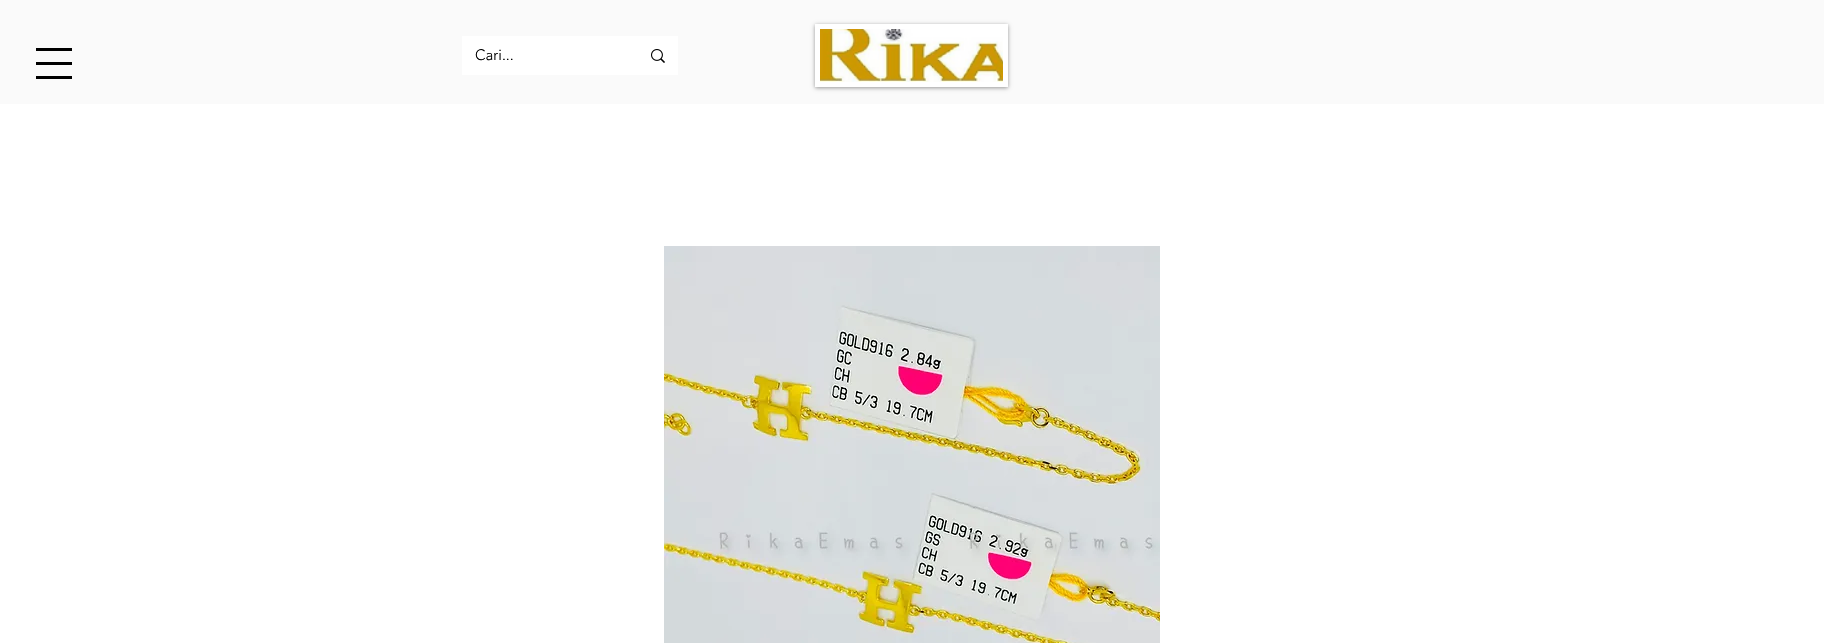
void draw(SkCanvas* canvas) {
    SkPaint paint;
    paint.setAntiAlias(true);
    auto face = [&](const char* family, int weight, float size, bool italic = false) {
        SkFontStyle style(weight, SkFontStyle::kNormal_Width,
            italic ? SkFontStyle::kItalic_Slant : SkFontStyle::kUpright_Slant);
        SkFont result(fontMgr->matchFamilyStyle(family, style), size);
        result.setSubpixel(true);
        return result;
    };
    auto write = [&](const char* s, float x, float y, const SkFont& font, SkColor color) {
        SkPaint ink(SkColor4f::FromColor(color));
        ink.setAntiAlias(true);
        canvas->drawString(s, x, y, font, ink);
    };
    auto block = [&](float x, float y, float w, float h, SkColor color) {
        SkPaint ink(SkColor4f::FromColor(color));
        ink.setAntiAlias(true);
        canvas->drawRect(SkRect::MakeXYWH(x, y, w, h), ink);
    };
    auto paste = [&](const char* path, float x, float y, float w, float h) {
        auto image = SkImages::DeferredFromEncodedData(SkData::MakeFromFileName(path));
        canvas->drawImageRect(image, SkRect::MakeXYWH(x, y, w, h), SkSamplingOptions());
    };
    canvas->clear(SK_ColorWHITE);
    block(0, 0, 1824, 104, SkColorSetRGB(250, 250, 250));
    block(36, 48, 36, 3, SK_ColorBLACK);
    block(36, 62, 36, 3, SK_ColorBLACK);
    block(36, 76, 36, 3, SK_ColorBLACK);
    paint.setStyle(SkPaint::kStroke_Style);
    paint.setStrokeWidth(1);
    paint.setColor(SK_ColorWHITE);
    canvas->drawRect(SkRect::MakeXYWH(462.5f, 36.5f, 215, 38), paint);
    block(463, 37, 214, 37, SK_ColorWHITE);
    auto kFont1 = face("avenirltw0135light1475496", 300, 15);
    write("Cari...", 475, 60, kFont1, SK_ColorBLACK);
    paste("pic1.png", 651, 49, 14, 14);
    paint.setStyle(SkPaint::kFill_Style);
    paint.setColor(SkColorSetARGB(102, 0, 0, 0));
    paint.setMaskFilter(SkMaskFilter::MakeBlur(kNormal_SkBlurStyle, 2));
    canvas->drawRect(SkRect::MakeXYWH(815, 25, 193, 63), paint);
    paint.setMaskFilter(nullptr);
    block(815, 24, 193, 63, SK_ColorWHITE);
    paste("pic2.png", 820, 29, 183, 53);
    paste("pic3.png", 664, 246, 496, 397);
}
